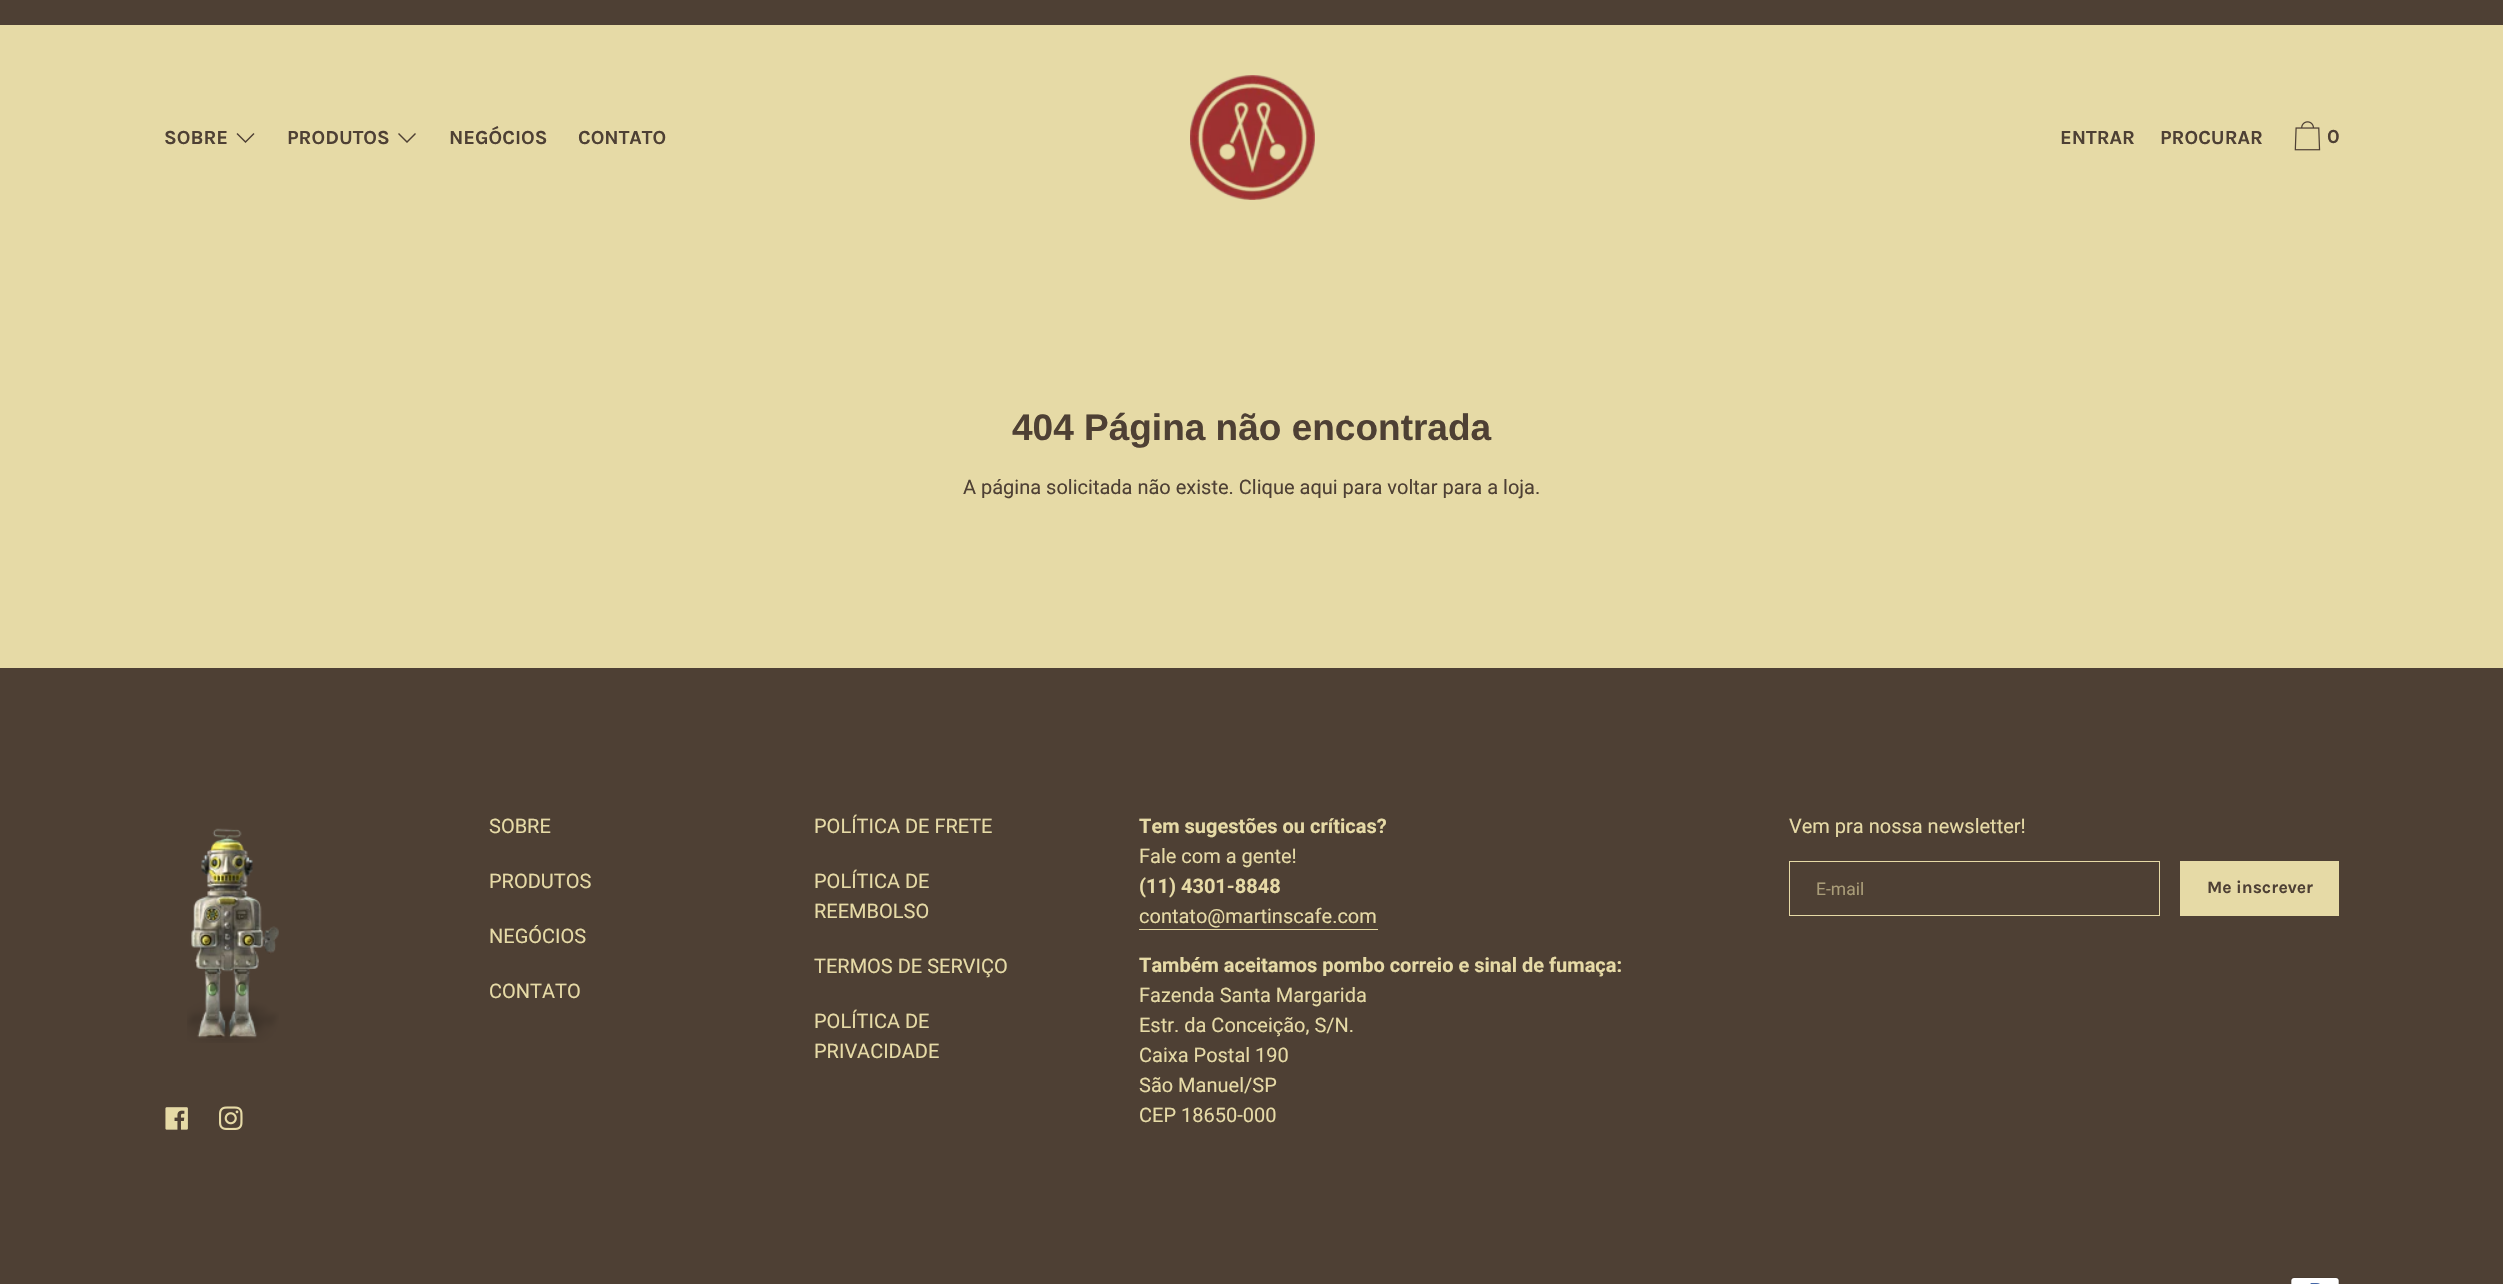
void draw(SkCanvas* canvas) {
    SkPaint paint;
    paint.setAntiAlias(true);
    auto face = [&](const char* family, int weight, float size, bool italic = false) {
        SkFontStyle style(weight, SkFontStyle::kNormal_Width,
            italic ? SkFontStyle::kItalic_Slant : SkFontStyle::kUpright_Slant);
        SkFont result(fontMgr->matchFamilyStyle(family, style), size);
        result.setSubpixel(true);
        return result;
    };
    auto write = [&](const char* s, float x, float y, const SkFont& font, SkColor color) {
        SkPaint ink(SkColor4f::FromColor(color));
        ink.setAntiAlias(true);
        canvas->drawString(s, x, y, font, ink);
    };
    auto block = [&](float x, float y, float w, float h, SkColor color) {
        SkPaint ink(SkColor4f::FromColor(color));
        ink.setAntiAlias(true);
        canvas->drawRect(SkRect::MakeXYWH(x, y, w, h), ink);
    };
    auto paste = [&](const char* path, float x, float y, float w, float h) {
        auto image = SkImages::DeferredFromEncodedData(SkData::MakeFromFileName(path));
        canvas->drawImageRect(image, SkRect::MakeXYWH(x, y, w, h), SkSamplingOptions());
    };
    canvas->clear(SkColorSetRGB(230, 218, 166));
    block(0, 0, 2503, 25, SkColorSetRGB(78, 64, 52));
    auto kFont1 = face("Karla", 700, 20);
    write("SOBRE", 164, 144, kFont1, SkColorSetRGB(78, 64, 52));
    paint.setColor(SkColorSetRGB(78, 64, 52));
    canvas->drawPath(SkPathBuilder(SkPathFillType::kEvenOdd).moveTo(245.5f, 141).lineTo(253.5f, 133).lineTo(254.5f, 134).lineTo(245.5f, 143).lineTo(236.5f, 134).lineTo(237.5f, 133).close().detach(), paint);
    write("PRODUTOS", 287, 144, kFont1, SkColorSetRGB(78, 64, 52));
    canvas->drawPath(SkPathBuilder(SkPathFillType::kEvenOdd).moveTo(407, 141).lineTo(415, 133).lineTo(416, 134).lineTo(407, 143).lineTo(398, 134).lineTo(399, 133).close().detach(), paint);
    write("NEGÓCIOS", 449, 144, kFont1, SkColorSetRGB(78, 64, 52));
    write("CONTATO", 578, 144, kFont1, SkColorSetRGB(78, 64, 52));
    paste("pic1.png", 1190, 75, 125, 125);
    write("ENTRAR", 2060, 144, kFont1, SkColorSetRGB(78, 64, 52));
    write("PROCURAR", 2160, 144, kFont1, SkColorSetRGB(78, 64, 52));
    paste("pic2.png", 2294, 121, 27, 30);
    write("0", 2327, 143, kFont1, SkColorSetRGB(78, 64, 52));
    auto kFont2 = face("Liberation Sans", 700, 37);
    write("404 Página não encontrada", 1012, 440, kFont2, SkColorSetRGB(78, 64, 52));
    auto kFont3 = face("Roboto", 400, 20);
    write("A página solicitada não existe. Clique aqui para voltar para a loja.", 963, 494, kFont3, SkColorSetRGB(78, 64, 52));
    block(0, 668, 2503, 616, SkColorSetRGB(78, 64, 52));
    paste("pic3.png", 187, 828, 92, 215);
    paste("pic4.png", 165, 1107, 23, 23);
    paste("pic5.png", 219, 1106, 24, 24);
    write("SOBRE", 489, 833, kFont3, SkColorSetRGB(230, 218, 166));
    write("PRODUTOS", 489, 888, kFont3, SkColorSetRGB(230, 218, 166));
    write("NEGÓCIOS", 489, 943, kFont3, SkColorSetRGB(230, 218, 166));
    write("CONTATO", 489, 998, kFont3, SkColorSetRGB(230, 218, 166));
    write("POLÍTICA DE FRETE", 814, 833, kFont3, SkColorSetRGB(230, 218, 166));
    write("POLÍTICA DE", 814, 888, kFont3, SkColorSetRGB(230, 218, 166));
    write("REEMBOLSO", 814, 918, kFont3, SkColorSetRGB(230, 218, 166));
    write("TERMOS DE SERVIÇO", 814, 973, kFont3, SkColorSetRGB(230, 218, 166));
    write("POLÍTICA DE", 814, 1028, kFont3, SkColorSetRGB(230, 218, 166));
    write("PRIVACIDADE", 814, 1058, kFont3, SkColorSetRGB(230, 218, 166));
    auto kFont4 = face("Roboto", 700, 20);
    write("Tem sugestões ou críticas?", 1139, 833, kFont4, SkColorSetRGB(230, 218, 166));
    write("Fale com a gente!", 1139, 863, kFont3, SkColorSetRGB(230, 218, 166));
    write("(11) 4301-8848", 1139, 893, kFont4, SkColorSetRGB(230, 218, 166));
    write("contato@martinscafe.com", 1139, 923, kFont3, SkColorSetRGB(230, 218, 166));
    block(1139, 929, 239, 1, SkColorSetRGB(230, 218, 166));
    write("Também aceitamos pombo correio e sinal de fumaça:", 1139, 972, kFont4, SkColorSetRGB(230, 218, 166));
    write("Fazenda Santa Margarida", 1139, 1002, kFont3, SkColorSetRGB(230, 218, 166));
    write("Estr. da Conceição, S/N.", 1139, 1032, kFont3, SkColorSetRGB(230, 218, 166));
    write("Caixa Postal 190", 1139, 1062, kFont3, SkColorSetRGB(230, 218, 166));
    write("São Manuel/SP", 1139, 1092, kFont3, SkColorSetRGB(230, 218, 166));
    write("CEP 18650-000", 1139, 1122, kFont3, SkColorSetRGB(230, 218, 166));
    write("Vem pra nossa newsletter!", 1789, 833, kFont3, SkColorSetRGB(230, 218, 166));
    paint.setStyle(SkPaint::kStroke_Style);
    paint.setStrokeWidth(1);
    paint.setColor(SkColorSetRGB(230, 218, 166));
    canvas->drawRect(SkRect::MakeXYWH(1789.5f, 861.5f, 370, 54), paint);
    auto kFont5 = face("Roboto", 400, 17.5f);
    write("E-mail", 1816, 895, kFont5, SkColorSetRGB(169, 156, 120));
    block(2180, 861, 159, 55, SkColorSetRGB(230, 218, 166));
    auto kFont6 = face("Karla", 700, 17.5f);
    write("Me inscrever", 2207, 893, kFont6, SkColorSetRGB(78, 64, 52));
    paste("pic6.png", 2290, 1277, 50, 7);
}
